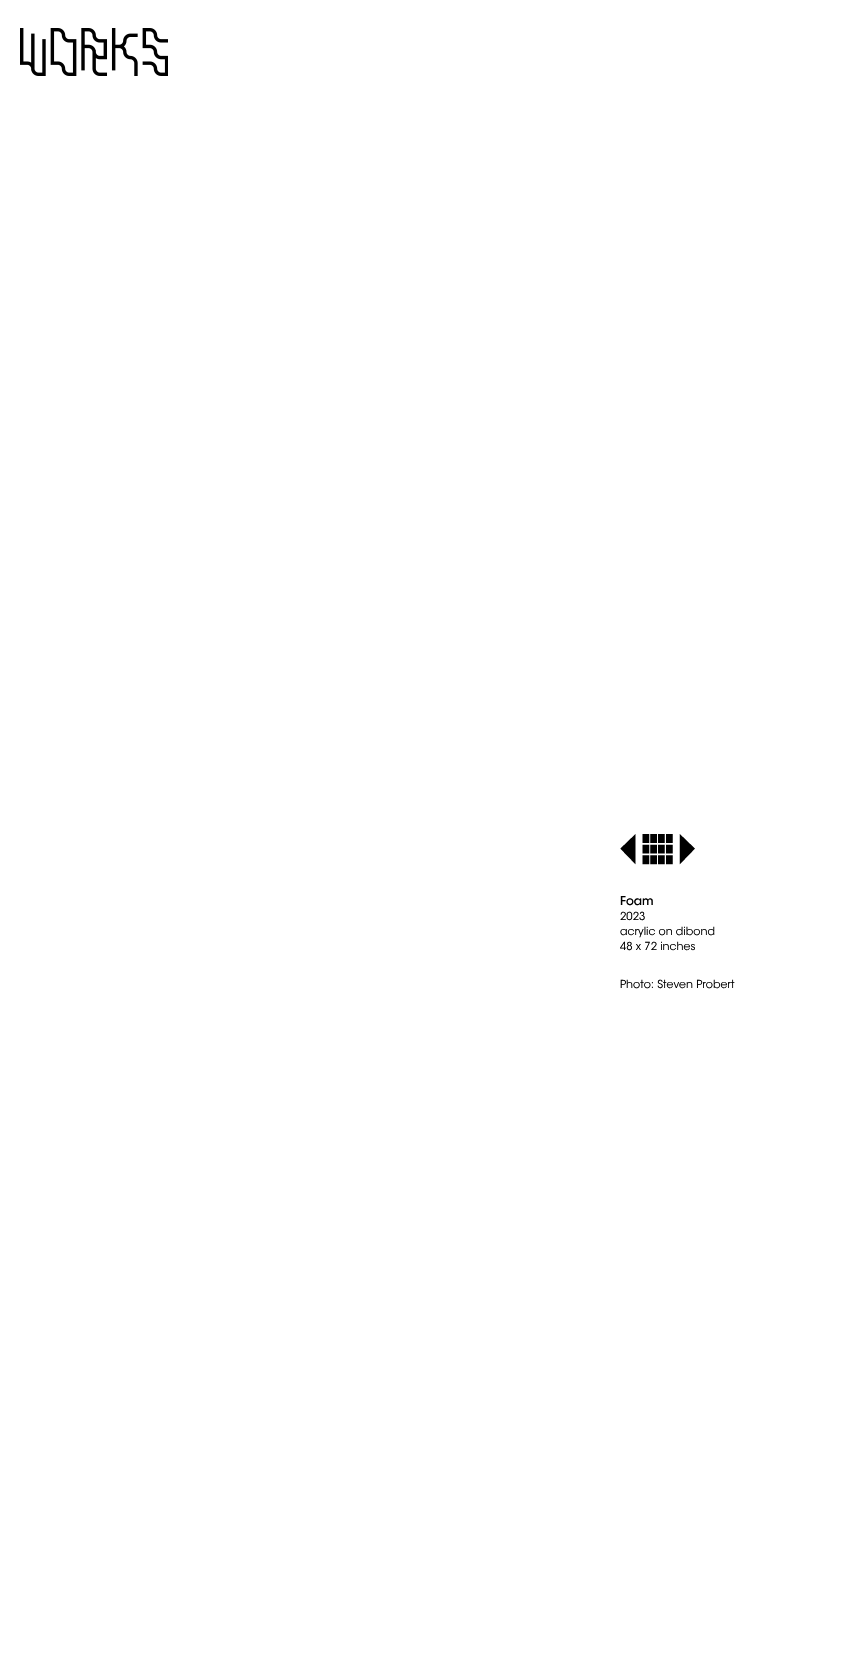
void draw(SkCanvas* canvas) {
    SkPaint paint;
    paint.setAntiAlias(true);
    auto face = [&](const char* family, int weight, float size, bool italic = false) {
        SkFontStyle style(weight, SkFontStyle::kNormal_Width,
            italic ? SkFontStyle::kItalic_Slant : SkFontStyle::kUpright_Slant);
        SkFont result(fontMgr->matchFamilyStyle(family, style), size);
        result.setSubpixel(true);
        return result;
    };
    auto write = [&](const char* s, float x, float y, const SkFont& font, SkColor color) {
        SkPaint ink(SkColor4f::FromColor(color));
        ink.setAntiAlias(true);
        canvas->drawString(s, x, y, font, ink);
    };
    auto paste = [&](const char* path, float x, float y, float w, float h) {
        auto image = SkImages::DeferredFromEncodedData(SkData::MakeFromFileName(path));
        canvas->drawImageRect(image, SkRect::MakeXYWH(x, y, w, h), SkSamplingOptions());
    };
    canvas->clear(SK_ColorWHITE);
    paste("pic1.png", 20, 28, 148, 48);
    paste("pic2.png", 620, 834, 16, 31);
    paste("pic3.png", 642, 834, 31, 31);
    paste("pic4.png", 679, 834, 16, 31);
    auto kFont1 = face("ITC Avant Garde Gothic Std", 500, 12);
    write("Foam", 620, 905, kFont1, SK_ColorBLACK);
    auto kFont2 = face("ITC Avant Garde Gothic Std", 300, 11);
    write("2023", 620, 920, kFont2, SK_ColorBLACK);
    write("acrylic on dibond", 620, 935, kFont2, SK_ColorBLACK);
    write("48 x 72 inches", 620, 950, kFont2, SK_ColorBLACK);
    write("Photo: Steven Probert", 620, 988, kFont2, SK_ColorBLACK);
}
